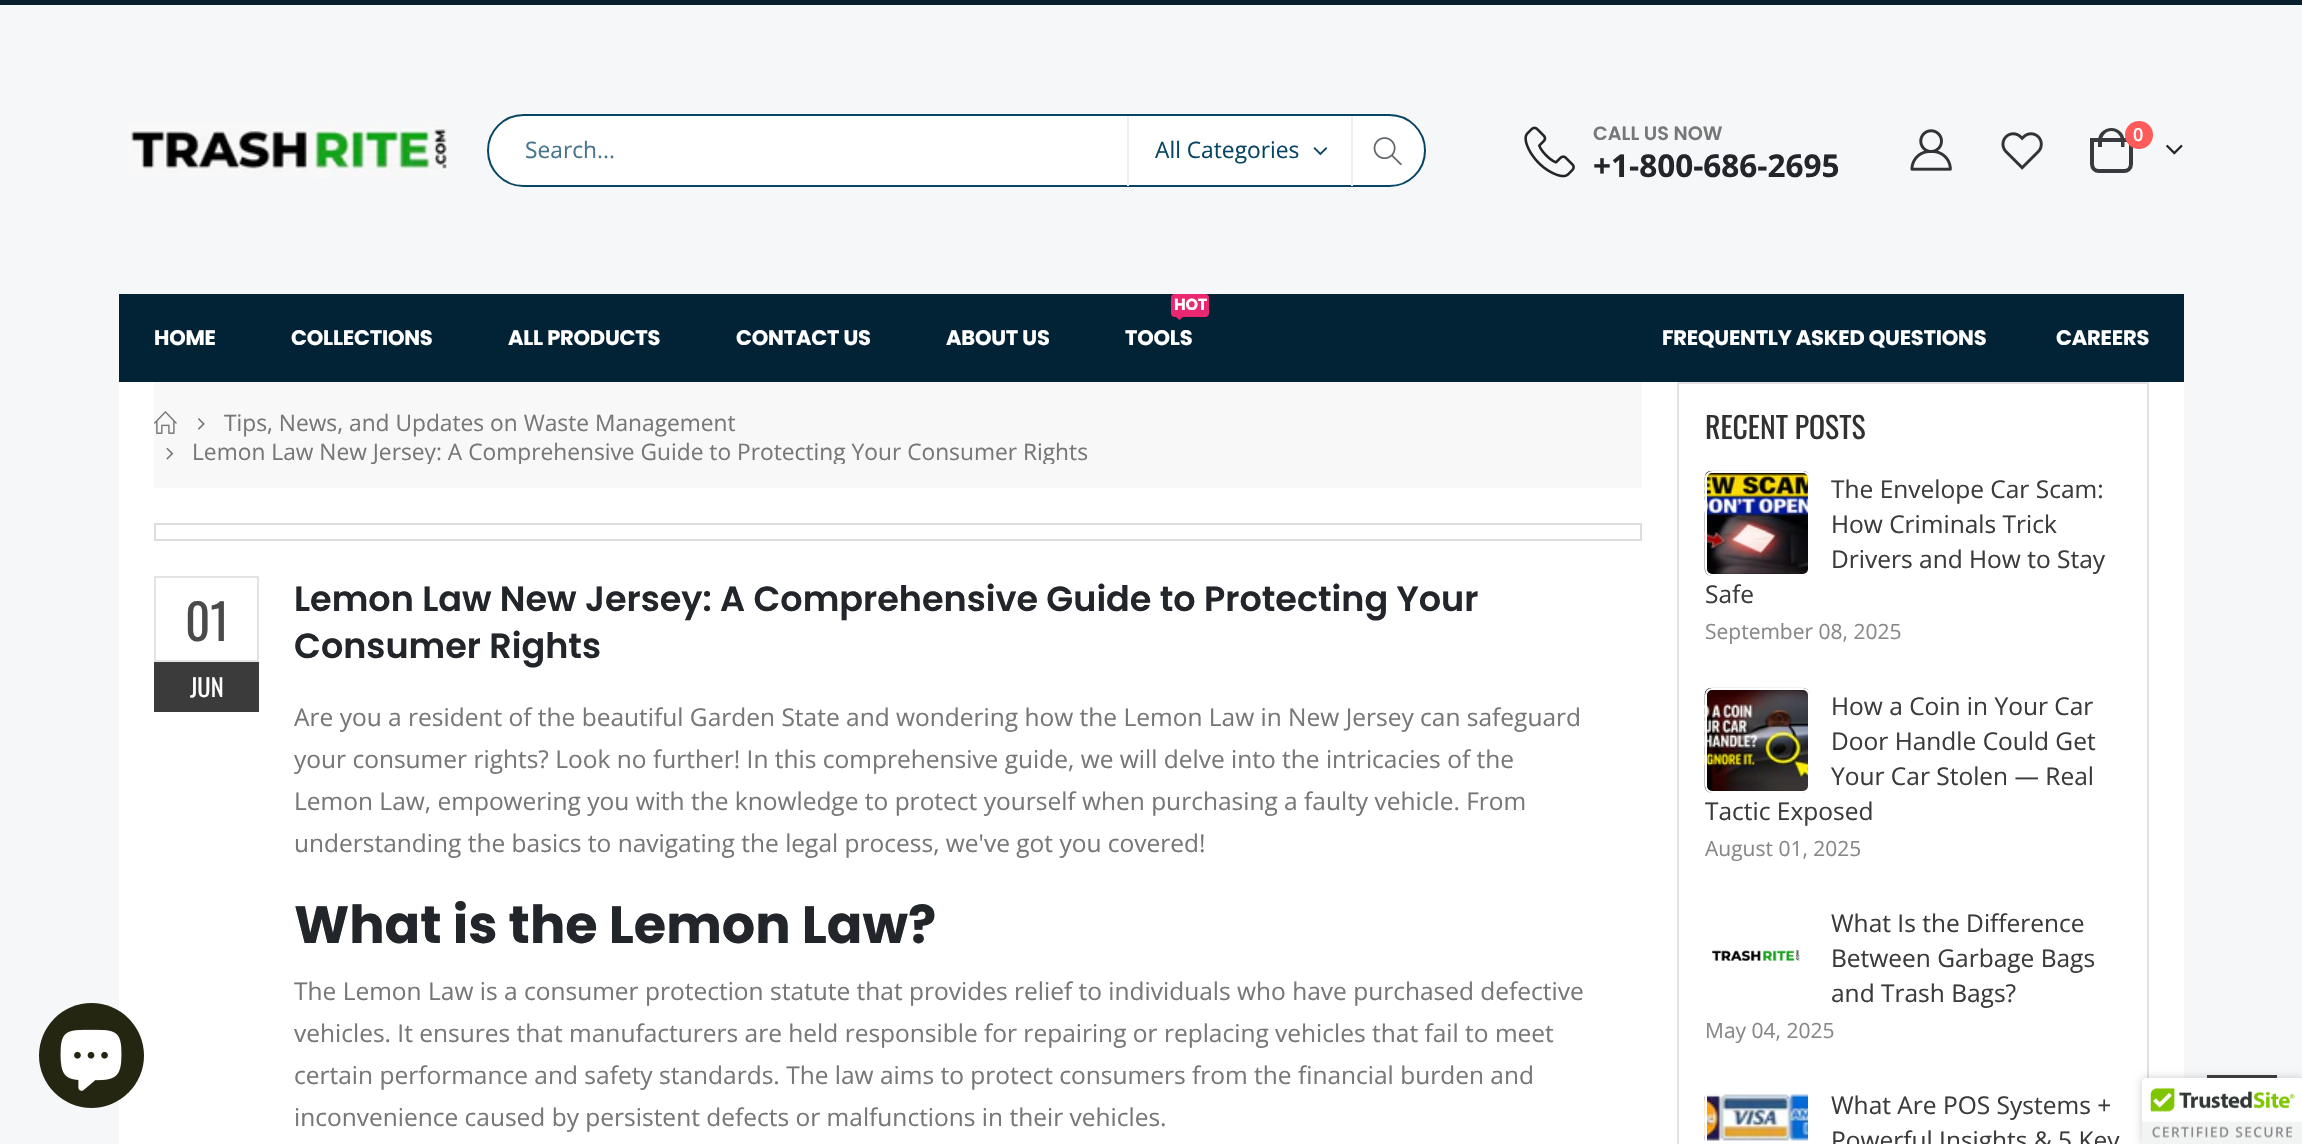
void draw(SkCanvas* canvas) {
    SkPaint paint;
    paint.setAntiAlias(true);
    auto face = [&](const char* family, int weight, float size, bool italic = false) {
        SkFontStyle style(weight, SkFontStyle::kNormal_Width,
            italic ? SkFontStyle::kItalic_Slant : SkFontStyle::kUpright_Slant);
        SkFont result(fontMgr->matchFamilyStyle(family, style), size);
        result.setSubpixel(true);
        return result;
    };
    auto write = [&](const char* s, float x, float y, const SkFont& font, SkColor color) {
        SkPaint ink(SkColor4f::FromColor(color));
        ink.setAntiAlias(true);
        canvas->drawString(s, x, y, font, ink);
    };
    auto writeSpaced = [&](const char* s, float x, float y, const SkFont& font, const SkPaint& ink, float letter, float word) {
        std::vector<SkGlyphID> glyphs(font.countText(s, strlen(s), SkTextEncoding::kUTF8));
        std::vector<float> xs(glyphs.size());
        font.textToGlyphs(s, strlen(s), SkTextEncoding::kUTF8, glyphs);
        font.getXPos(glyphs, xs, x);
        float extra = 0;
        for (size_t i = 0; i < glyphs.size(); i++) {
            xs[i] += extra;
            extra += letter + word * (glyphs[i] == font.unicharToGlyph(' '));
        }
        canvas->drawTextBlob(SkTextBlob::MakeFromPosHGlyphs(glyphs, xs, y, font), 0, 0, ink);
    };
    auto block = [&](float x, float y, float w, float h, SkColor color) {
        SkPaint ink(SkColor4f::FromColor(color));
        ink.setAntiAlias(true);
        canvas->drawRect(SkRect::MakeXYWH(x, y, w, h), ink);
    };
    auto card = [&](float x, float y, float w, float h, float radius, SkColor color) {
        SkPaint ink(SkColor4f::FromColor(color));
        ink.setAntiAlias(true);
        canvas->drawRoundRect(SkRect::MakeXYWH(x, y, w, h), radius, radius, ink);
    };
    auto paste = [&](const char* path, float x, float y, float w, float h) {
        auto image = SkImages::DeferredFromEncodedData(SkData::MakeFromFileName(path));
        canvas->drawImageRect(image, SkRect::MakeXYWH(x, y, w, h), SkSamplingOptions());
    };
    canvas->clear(SkColorSetRGB(246, 247, 249));
    block(119, 382, 2065, 762, SK_ColorWHITE);
    paint.setColor(SkColorSetRGB(36, 38, 18));
    canvas->drawCircle(91.5f, 1055.5f, 52.5f, paint);
    paste("pic1.png", 60, 1029, 62, 62);
    block(0, 0, 2302, 5, SkColorSetRGB(8, 32, 45));
    paste("pic2.png", 128, 123, 320, 55);
    paint.setColor(SK_ColorWHITE);
    canvas->drawRoundRect(SkRect::MakeXYWH(488, 115, 937, 71), 35.5f, 35.5f, paint);
    paint.setStyle(SkPaint::kStroke_Style);
    paint.setStrokeWidth(2);
    paint.setColor(SkColorSetRGB(8, 69, 100));
    canvas->drawRoundRect(SkRect::MakeXYWH(488, 115, 937, 71), 35.5f, 35.5f, paint);
    auto kFont1 = face("Open Sans", 400, 22.75f);
    write("Search...", 525, 158, kFont1, SkColorSetRGB(70, 116, 139));
    block(1351, 116, 2, 70, SkColorSetRGB(238, 238, 238));
    block(1127, 116, 2, 70, SkColorSetRGB(238, 238, 238));
    write("All Categories", 1155, 158, kFont1, SkColorSetRGB(8, 69, 100));
    paste("pic3.png", 1313, 147, 15, 9);
    paste("pic4.png", 1373, 137, 29, 29);
    paste("pic5.png", 1524, 126, 51, 52);
    auto kFont2 = face("Poppins", 600, 19.25f);
    write("CALL US NOW", 1593, 140, kFont2, SkColorSetRGB(119, 119, 119));
    auto kFont3 = face("Open Sans", 700, 31.5f);
    write("+1-800-686-2695", 1593, 177, kFont3, SkColorSetRGB(34, 37, 41));
    paste("pic6.png", 1910, 129, 42, 42);
    paste("pic7.png", 2001, 132, 42, 38);
    paint.setStrokeWidth(4);
    paint.setColor(SkColorSetRGB(55, 58, 62));
    canvas->drawPath(SkPathBuilder().moveTo(2092, 140).lineTo(2131, 140).lineTo(2131, 164).cubicTo(2131, 168, 2128, 171, 2124, 171).lineTo(2099, 171).cubicTo(2095, 171, 2092, 168, 2092, 164).close().detach(), paint);
    paint.setStyle(SkPaint::kFill_Style);
    canvas->drawPath(SkPathBuilder(SkPathFillType::kEvenOdd).moveTo(2111.5f, 128).cubicTo(2118.5f, 128, 2124.5f, 133.5f, 2124.5f, 141).lineTo(2124.5f, 147).lineTo(2098, 147).lineTo(2098, 141).cubicTo(2098, 133.5f, 2104, 128, 2111.5f, 128).close().moveTo(2111.5f, 131).cubicTo(2116.5f, 131, 2121, 135.5f, 2121, 141).lineTo(2121, 147).lineTo(2102, 147).lineTo(2102, 141).cubicTo(2102, 135.5f, 2106, 131, 2111.5f, 131).close().detach(), paint);
    paint.setColor(SkColorSetRGB(255, 91, 91));
    canvas->drawCircle(2139, 135, 14, paint);
    auto kFont4 = face("Open Sans", 600, 18);
    write("0", 2133, 141, kFont4, SK_ColorWHITE);
    paste("pic8.png", 2166, 144, 17, 11);
    block(119, 294, 2065, 88, SkColorSetRGB(2, 35, 53));
    auto kFont5 = face("Poppins", 700, 21);
    paint.setColor(SK_ColorWHITE);
    writeSpaced("HOME", 154, 345, kFont5, paint, -0.2f, 0);
    writeSpaced("COLLECTIONS", 291, 345, kFont5, paint, -0.2f, 0);
    writeSpaced("ALL PRODUCTS", 508, 345, kFont5, paint, -0.2f, 0);
    writeSpaced("CONTACT US", 736, 345, kFont5, paint, -0.2f, 0);
    writeSpaced("ABOUT US", 946, 345, kFont5, paint, -0.2f, 0);
    card(1171, 294, 38, 23, 4, SkColorSetRGB(235, 39, 113));
    auto kFont6 = face("Poppins", 700, 16);
    writeSpaced("HOT", 1174, 310, kFont6, paint, -0.2f, 0);
    paint.setColor(SkColorSetRGB(235, 39, 113));
    canvas->drawPath(SkPathBuilder().moveTo(1176, 317).lineTo(1183, 317).lineTo(1179.5f, 320).close().detach(), paint);
    paint.setColor(SK_ColorWHITE);
    writeSpaced("TOOLS", 1125, 345, kFont5, paint, -0.2f, 0);
    writeSpaced("FREQUENTLY ASKED QUESTIONS", 1662, 345, kFont5, paint, -0.2f, 0);
    writeSpaced("CAREERS", 2056, 345, kFont5, paint, -0.2f, 0);
    block(154, 382, 1488, 106, SkColorSetRGB(248, 248, 248));
    paste("pic9.png", 154, 411, 23, 23);
    paste("pic10.png", 198, 418, 7, 12);
    write("Tips, News, and Updates on Waste Management", 224, 431, kFont1, SkColorSetRGB(119, 119, 119));
    paste("pic11.png", 166, 447, 8, 13);
    canvas->save();
    canvas->clipRect(SkRect::MakeXYWH(154, 406, 1488, 58));
    write("Lemon Law New Jersey: A Comprehensive Guide to Protecting Your Consumer Rights", 192, 460, kFont1, SkColorSetRGB(119, 119, 119));
    canvas->restore();
    paint.setStyle(SkPaint::kStroke_Style);
    paint.setStrokeWidth(2);
    paint.setColor(SkColorSetRGB(221, 221, 221));
    canvas->drawRect(SkRect::MakeXYWH(155, 524, 1486, 16), paint);
    paint.setColor(SkColorSetRGB(227, 227, 227));
    canvas->drawRect(SkRect::MakeXYWH(155, 577, 103, 84), paint);
    auto kFont7 = face("Oswald", 400, 49);
    write("01", 185, 641, kFont7, SkColorSetRGB(74, 74, 74));
    block(154, 662, 105, 50, SkColorSetRGB(59, 59, 59));
    auto kFont8 = face("Oswald", 400, 24.5f);
    write("JUN", 190, 697, kFont8, SK_ColorWHITE);
    auto kFont9 = face("Poppins", 600, 35);
    write("Lemon Law New Jersey: A Comprehensive Guide to Protecting Your", 294, 611, kFont9, SkColorSetRGB(34, 37, 41));
    write("Consumer Rights", 294, 658, kFont9, SkColorSetRGB(34, 37, 41));
    auto kFont10 = face("Open Sans", 400, 24.5f);
    write("Are you a resident of the beautiful Garden State and wondering how the Lemon Law in New Jersey can safeguard", 294, 726, kFont10, SkColorSetRGB(119, 119, 119));
    write("your consumer rights? Look no further! In this comprehensive guide, we will delve into the intricacies of the", 294, 768, kFont10, SkColorSetRGB(119, 119, 119));
    write("Lemon Law, empowering you with the knowledge to protect yourself when purchasing a faulty vehicle. From", 294, 810, kFont10, SkColorSetRGB(119, 119, 119));
    write("understanding the basics to navigating the legal process, we've got you covered!", 294, 852, kFont10, SkColorSetRGB(119, 119, 119));
    auto kFont11 = face("Poppins", 700, 52.5f);
    write("What is the Lemon Law?", 294, 943, kFont11, SkColorSetRGB(34, 37, 41));
    write("The Lemon Law is a consumer protection statute that provides relief to individuals who have purchased defective", 294, 1000, kFont10, SkColorSetRGB(119, 119, 119));
    write("vehicles. It ensures that manufacturers are held responsible for repairing or replacing vehicles that fail to meet", 294, 1042, kFont10, SkColorSetRGB(119, 119, 119));
    write("certain performance and safety standards. The law aims to protect consumers from the financial burden and", 294, 1084, kFont10, SkColorSetRGB(119, 119, 119));
    write("inconvenience caused by persistent defects or malfunctions in their vehicles.", 294, 1126, kFont10, SkColorSetRGB(119, 119, 119));
    paint.setColor(SkColorSetRGB(225, 225, 225));
    canvas->drawRect(SkRect::MakeXYWH(1678, 383, 470, 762), paint);
    auto kFont12 = face("Oswald", 400, 29.75f);
    write("RECENT POSTS", 1705, 439, kFont12, SkColorSetRGB(49, 49, 49));
    paste("pic12.png", 1704, 470, 106, 106);
    paint.setColor(SK_ColorWHITE);
    canvas->drawRoundRect(SkRect::MakeXYWH(1706, 472, 103, 103), 6, 6, paint);
    write("The Envelope Car Scam:", 1831, 498, kFont10, SkColorSetRGB(59, 59, 59));
    write("How Criminals Trick", 1831, 533, kFont10, SkColorSetRGB(59, 59, 59));
    write("Drivers and How to Stay", 1831, 568, kFont10, SkColorSetRGB(59, 59, 59));
    write("Safe", 1705, 603, kFont10, SkColorSetRGB(59, 59, 59));
    auto kFont13 = face("Open Sans", 400, 21);
    write("September 08, 2025", 1705, 639, kFont13, SkColorSetRGB(136, 136, 136));
    paste("pic13.png", 1704, 687, 106, 106);
    canvas->drawRoundRect(SkRect::MakeXYWH(1706, 689, 103, 103), 6, 6, paint);
    write("How a Coin in Your Car", 1831, 715, kFont10, SkColorSetRGB(59, 59, 59));
    write("Door Handle Could Get", 1831, 750, kFont10, SkColorSetRGB(59, 59, 59));
    write("Your Car Stolen — Real", 1831, 785, kFont10, SkColorSetRGB(59, 59, 59));
    write("Tactic Exposed", 1705, 820, kFont10, SkColorSetRGB(59, 59, 59));
    write("August 01, 2025", 1705, 856, kFont13, SkColorSetRGB(136, 136, 136));
    write("What Is the Difference", 1831, 932, kFont10, SkColorSetRGB(59, 59, 59));
    paste("pic14.png", 1712, 949, 88, 13);
    write("Between Garbage Bags", 1831, 967, kFont10, SkColorSetRGB(59, 59, 59));
    write("and Trash Bags?", 1831, 1002, kFont10, SkColorSetRGB(59, 59, 59));
    write("May 04, 2025", 1705, 1038, kFont13, SkColorSetRGB(136, 136, 136));
    paste("pic15.png", 1704, 1094, 104, 47);
    canvas->drawRoundRect(SkRect::MakeXYWH(1706, 1088, 103, 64), 6, 6, paint);
    write("What Are POS Systems +", 1831, 1114, kFont10, SkColorSetRGB(59, 59, 59));
    write("Powerful Insights & 5 Key", 1831, 1149, kFont10, SkColorSetRGB(59, 59, 59));
    block(2207, 1075, 70, 3, SkColorSetRGB(64, 64, 64));
    paint.setStyle(SkPaint::kFill_Style);
    paint.setColor(SkColorSetARGB(51, 0, 0, 0));
    paint.setMaskFilter(SkMaskFilter::MakeBlur(kNormal_SkBlurStyle, 4.5f));
    canvas->drawRoundRect(SkRect::MakeXYWH(2142, 1078, 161, 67), 4, 4, paint);
    paint.setMaskFilter(nullptr);
    paint.setColor(SK_ColorWHITE);
    canvas->drawPath(SkPathBuilder().moveTo(2146, 1078).lineTo(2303, 1078).lineTo(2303, 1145).lineTo(2142, 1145).lineTo(2142, 1082).cubicTo(2142, 1080, 2144, 1078, 2146, 1078).close().detach(), paint);
    paste("pic16.png", 2142, 1078, 160, 66);
}
